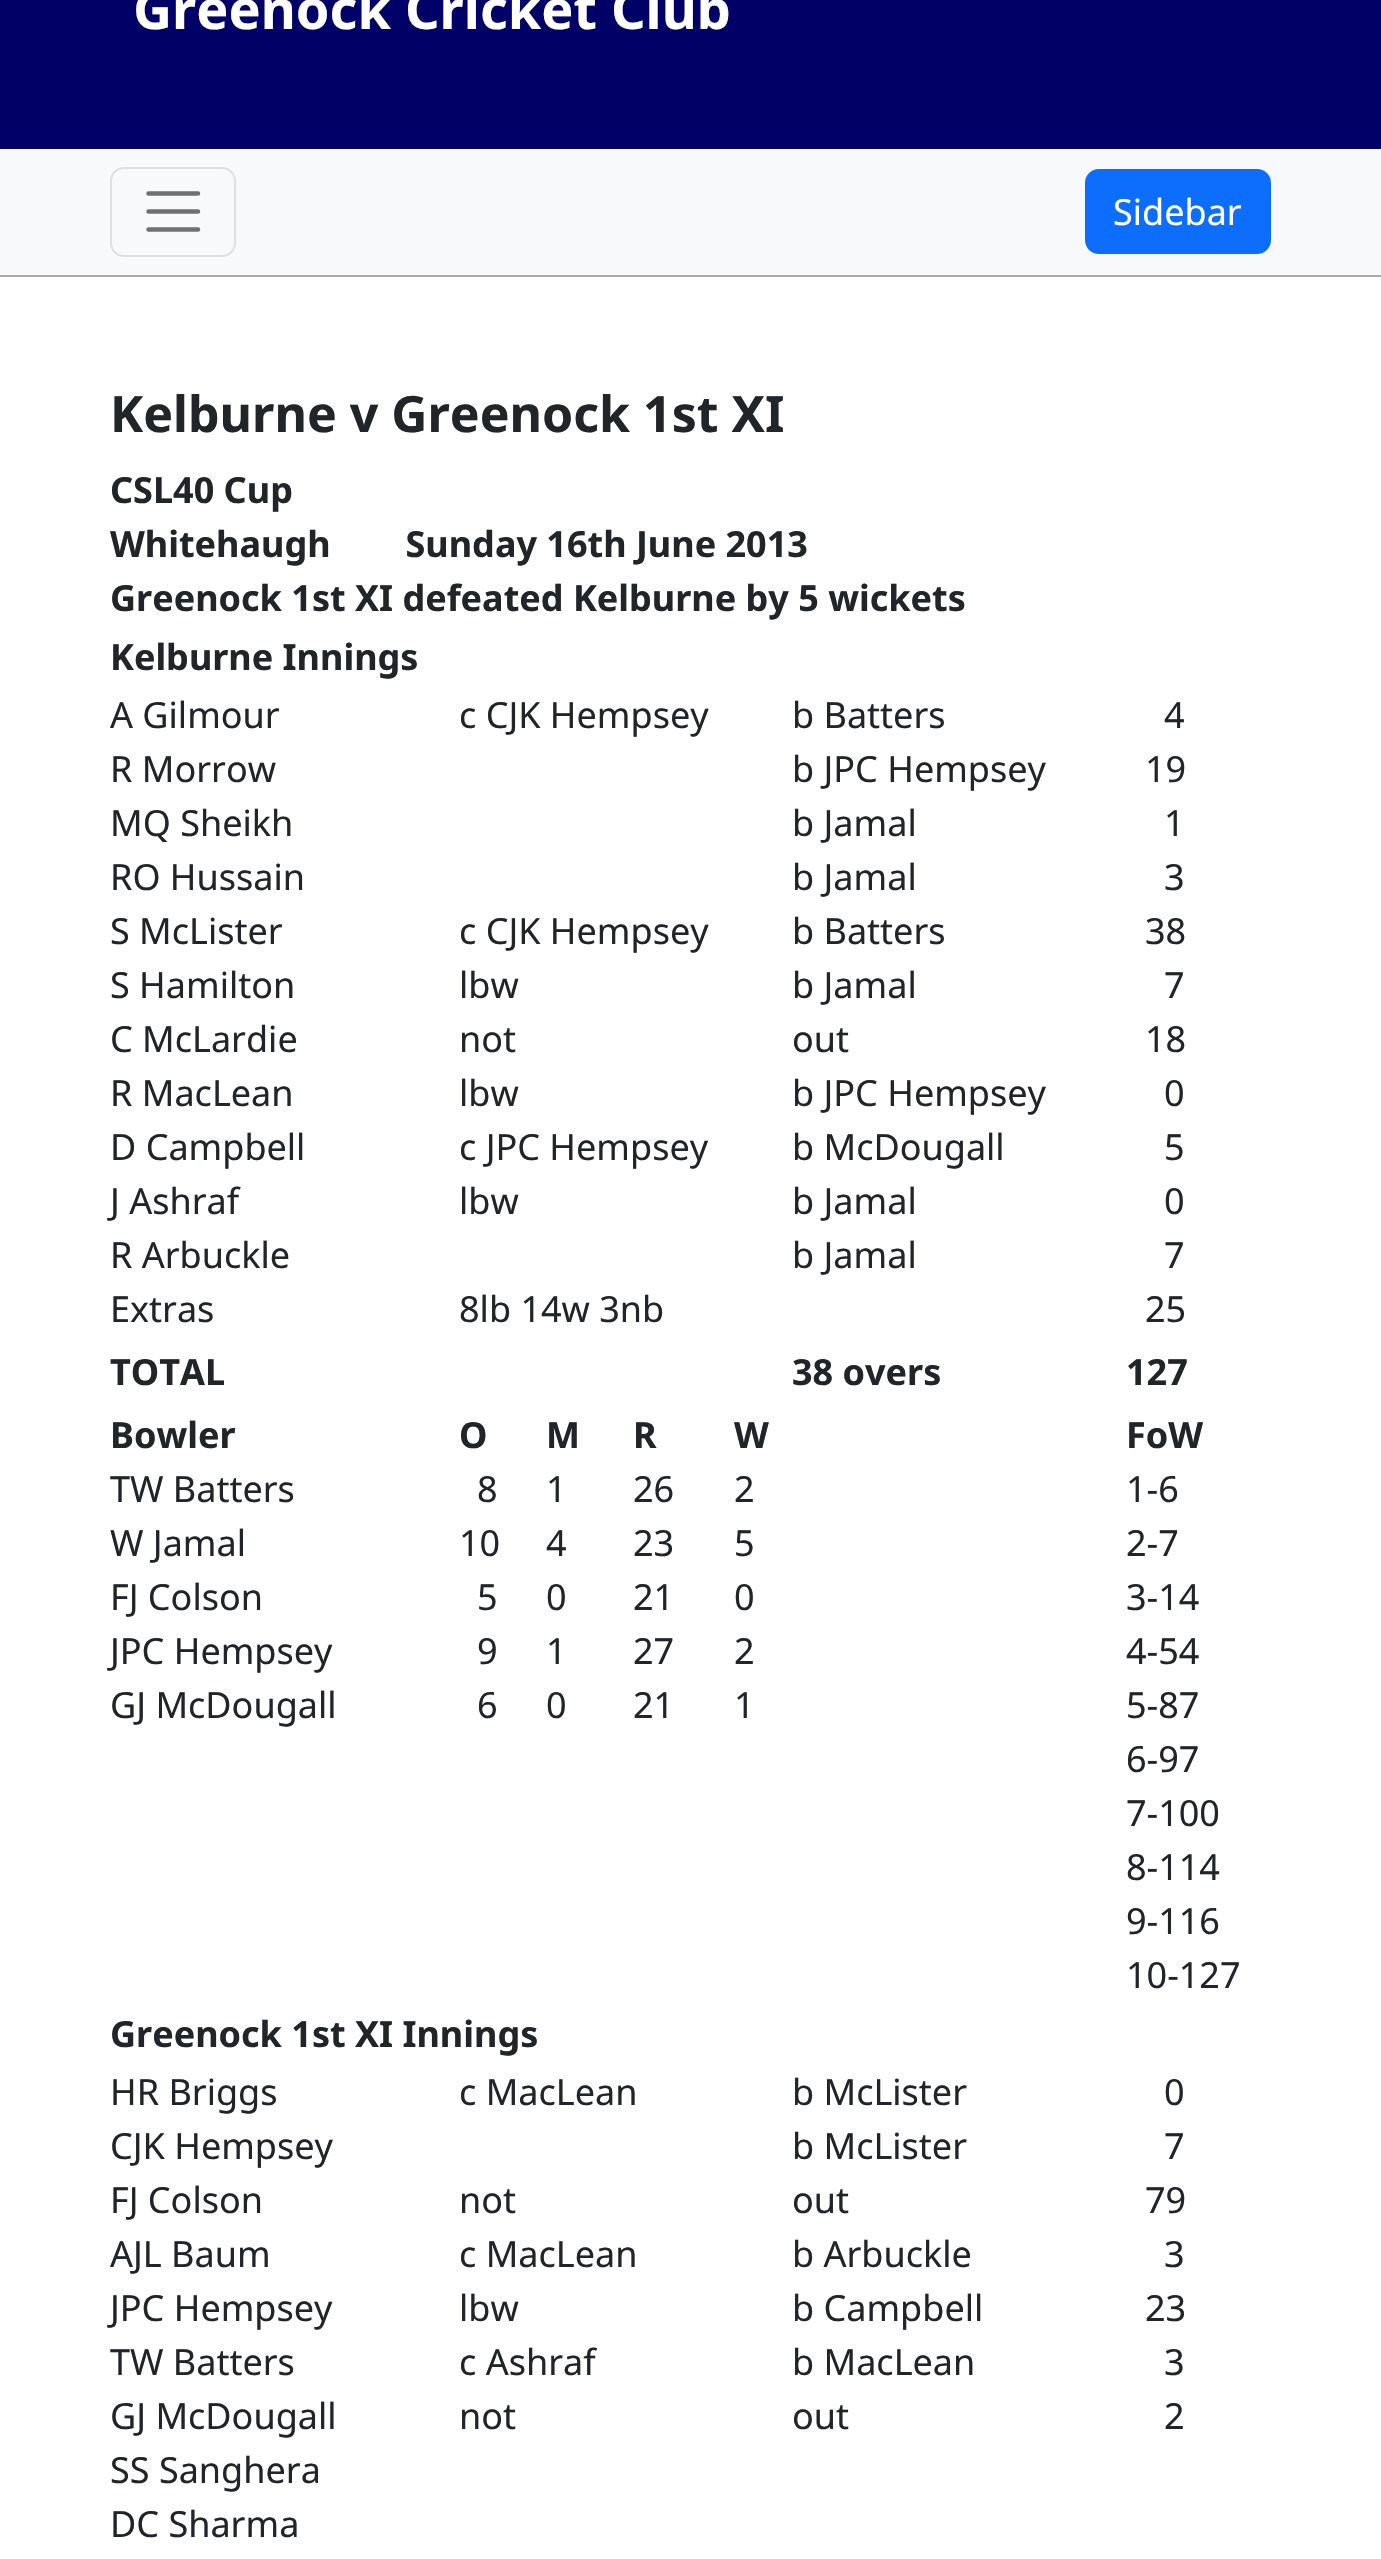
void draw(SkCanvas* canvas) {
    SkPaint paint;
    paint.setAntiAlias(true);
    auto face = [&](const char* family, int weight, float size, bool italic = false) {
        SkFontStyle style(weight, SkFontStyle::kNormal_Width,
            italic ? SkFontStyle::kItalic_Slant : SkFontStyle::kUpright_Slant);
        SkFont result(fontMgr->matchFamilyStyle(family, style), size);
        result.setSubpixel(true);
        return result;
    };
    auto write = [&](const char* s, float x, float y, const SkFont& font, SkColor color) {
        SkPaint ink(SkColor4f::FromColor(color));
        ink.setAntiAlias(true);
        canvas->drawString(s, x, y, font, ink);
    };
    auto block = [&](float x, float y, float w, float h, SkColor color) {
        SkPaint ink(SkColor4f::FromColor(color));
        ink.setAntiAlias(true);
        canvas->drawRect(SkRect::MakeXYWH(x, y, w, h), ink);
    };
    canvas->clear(SK_ColorWHITE);
    block(0, 0, 1381, 149, SkColorSetRGB(0, 0, 102));
    auto kFont1 = face("Noto Sans", 700, 54);
    write("Greenock Cricket Club", 133, 29, kFont1, SK_ColorWHITE);
    block(0, 149, 1381, 126, SkColorSetRGB(248, 249, 251));
    block(0, 275, 1381, 2, SkColorSetRGB(169, 169, 169));
    paint.setStyle(SkPaint::kStroke_Style);
    paint.setStrokeWidth(2);
    paint.setColor(SkColorSetRGB(223, 224, 226));
    canvas->drawRoundRect(SkRect::MakeXYWH(111, 168, 124, 88), 13, 13, paint);
    paint.setStrokeWidth(4.5f);
    paint.setStrokeCap(SkPaint::kRound_Cap);
    paint.setColor(SkColorSetRGB(112, 112, 113));
    canvas->drawPath(SkPathBuilder().moveTo(148.5f, 193.5f).lineTo(198, 193.5f).moveTo(148.5f, 211.5f).lineTo(198, 211.5f).moveTo(148.5f, 229.5f).lineTo(198, 229.5f).detach(), paint);
    paint.setStyle(SkPaint::kFill_Style);
    paint.setColor(SkColorSetRGB(13, 110, 253));
    canvas->drawRoundRect(SkRect::MakeXYWH(1086, 170, 184, 83), 13, 13, paint);
    paint.setStyle(SkPaint::kStroke_Style);
    paint.setStrokeWidth(2);
    paint.setStrokeCap(SkPaint::kButt_Cap);
    canvas->drawRoundRect(SkRect::MakeXYWH(1086, 170, 184, 83), 13, 13, paint);
    auto kFont2 = face("Noto Sans", 400, 36);
    write("Sidebar", 1113, 225, kFont2, SK_ColorWHITE);
    auto kFont3 = face("Noto Sans", 700, 50);
    write("Kelburne v Greenock 1st XI", 110, 432, kFont3, SkColorSetRGB(33, 37, 41));
    auto kFont4 = face("Noto Sans", 700, 36);
    write("CSL40 Cup", 110, 503, kFont4, SkColorSetRGB(33, 37, 41));
    write("Whitehaugh        Sunday 16th June 2013", 110, 557, kFont4, SkColorSetRGB(33, 37, 41));
    write("Greenock 1st XI defeated Kelburne by 5 wickets", 110, 611, kFont4, SkColorSetRGB(33, 37, 41));
    write("Kelburne Innings", 110, 670, kFont4, SkColorSetRGB(33, 37, 41));
    write("A Gilmour", 110, 728, kFont2, SkColorSetRGB(33, 37, 41));
    write("c CJK Hempsey", 459, 728, kFont2, SkColorSetRGB(33, 37, 41));
    write("b Batters", 792, 728, kFont2, SkColorSetRGB(33, 37, 41));
    write("4", 1164, 728, kFont2, SkColorSetRGB(33, 37, 41));
    write("R Morrow", 110, 782, kFont2, SkColorSetRGB(33, 37, 41));
    write("b JPC Hempsey", 792, 782, kFont2, SkColorSetRGB(33, 37, 41));
    write("19", 1145, 782, kFont2, SkColorSetRGB(33, 37, 41));
    write("MQ Sheikh", 110, 836, kFont2, SkColorSetRGB(33, 37, 41));
    write("b Jamal", 792, 836, kFont2, SkColorSetRGB(33, 37, 41));
    write("1", 1164, 836, kFont2, SkColorSetRGB(33, 37, 41));
    write("RO Hussain", 110, 890, kFont2, SkColorSetRGB(33, 37, 41));
    write("b Jamal", 792, 890, kFont2, SkColorSetRGB(33, 37, 41));
    write("3", 1164, 890, kFont2, SkColorSetRGB(33, 37, 41));
    write("S McLister", 110, 944, kFont2, SkColorSetRGB(33, 37, 41));
    write("c CJK Hempsey", 459, 944, kFont2, SkColorSetRGB(33, 37, 41));
    write("b Batters", 792, 944, kFont2, SkColorSetRGB(33, 37, 41));
    write("38", 1145, 944, kFont2, SkColorSetRGB(33, 37, 41));
    write("S Hamilton", 110, 998, kFont2, SkColorSetRGB(33, 37, 41));
    write("lbw", 459, 998, kFont2, SkColorSetRGB(33, 37, 41));
    write("b Jamal", 792, 998, kFont2, SkColorSetRGB(33, 37, 41));
    write("7", 1164, 998, kFont2, SkColorSetRGB(33, 37, 41));
    write("C McLardie", 110, 1052, kFont2, SkColorSetRGB(33, 37, 41));
    write("not", 459, 1052, kFont2, SkColorSetRGB(33, 37, 41));
    write("out", 792, 1052, kFont2, SkColorSetRGB(33, 37, 41));
    write("18", 1145, 1052, kFont2, SkColorSetRGB(33, 37, 41));
    write("R MacLean", 110, 1106, kFont2, SkColorSetRGB(33, 37, 41));
    write("lbw", 459, 1106, kFont2, SkColorSetRGB(33, 37, 41));
    write("b JPC Hempsey", 792, 1106, kFont2, SkColorSetRGB(33, 37, 41));
    write("0", 1164, 1106, kFont2, SkColorSetRGB(33, 37, 41));
    write("D Campbell", 110, 1160, kFont2, SkColorSetRGB(33, 37, 41));
    write("c JPC Hempsey", 459, 1160, kFont2, SkColorSetRGB(33, 37, 41));
    write("b McDougall", 792, 1160, kFont2, SkColorSetRGB(33, 37, 41));
    write("5", 1164, 1160, kFont2, SkColorSetRGB(33, 37, 41));
    write("J Ashraf", 110, 1214, kFont2, SkColorSetRGB(33, 37, 41));
    write("lbw", 459, 1214, kFont2, SkColorSetRGB(33, 37, 41));
    write("b Jamal", 792, 1214, kFont2, SkColorSetRGB(33, 37, 41));
    write("0", 1164, 1214, kFont2, SkColorSetRGB(33, 37, 41));
    write("R Arbuckle", 110, 1268, kFont2, SkColorSetRGB(33, 37, 41));
    write("b Jamal", 792, 1268, kFont2, SkColorSetRGB(33, 37, 41));
    write("7", 1164, 1268, kFont2, SkColorSetRGB(33, 37, 41));
    write("Extras", 110, 1322, kFont2, SkColorSetRGB(33, 37, 41));
    write("8lb 14w 3nb", 459, 1322, kFont2, SkColorSetRGB(33, 37, 41));
    write("25", 1145, 1322, kFont2, SkColorSetRGB(33, 37, 41));
    write("TOTAL", 110, 1385, kFont4, SkColorSetRGB(33, 37, 41));
    write("38 overs", 792, 1385, kFont4, SkColorSetRGB(33, 37, 41));
    write("127", 1126, 1385, kFont4, SkColorSetRGB(33, 37, 41));
    write("Bowler", 110, 1448, kFont4, SkColorSetRGB(33, 37, 41));
    write("O", 459, 1448, kFont4, SkColorSetRGB(33, 37, 41));
    write("M", 546, 1448, kFont4, SkColorSetRGB(33, 37, 41));
    write("R", 633, 1448, kFont4, SkColorSetRGB(33, 37, 41));
    write("W", 734, 1448, kFont4, SkColorSetRGB(33, 37, 41));
    write("FoW", 1126, 1448, kFont4, SkColorSetRGB(33, 37, 41));
    write("TW Batters", 110, 1502, kFont2, SkColorSetRGB(33, 37, 41));
    write("8", 477, 1502, kFont2, SkColorSetRGB(33, 37, 41));
    write("1", 546, 1502, kFont2, SkColorSetRGB(33, 37, 41));
    write("26", 633, 1502, kFont2, SkColorSetRGB(33, 37, 41));
    write("2", 734, 1502, kFont2, SkColorSetRGB(33, 37, 41));
    write("1-6", 1126, 1502, kFont2, SkColorSetRGB(33, 37, 41));
    write("W Jamal", 110, 1556, kFont2, SkColorSetRGB(33, 37, 41));
    write("10", 459, 1556, kFont2, SkColorSetRGB(33, 37, 41));
    write("4", 546, 1556, kFont2, SkColorSetRGB(33, 37, 41));
    write("23", 633, 1556, kFont2, SkColorSetRGB(33, 37, 41));
    write("5", 734, 1556, kFont2, SkColorSetRGB(33, 37, 41));
    write("2-7", 1126, 1556, kFont2, SkColorSetRGB(33, 37, 41));
    write("FJ Colson", 110, 1610, kFont2, SkColorSetRGB(33, 37, 41));
    write("5", 477, 1610, kFont2, SkColorSetRGB(33, 37, 41));
    write("0", 546, 1610, kFont2, SkColorSetRGB(33, 37, 41));
    write("21", 633, 1610, kFont2, SkColorSetRGB(33, 37, 41));
    write("0", 734, 1610, kFont2, SkColorSetRGB(33, 37, 41));
    write("3-14", 1126, 1610, kFont2, SkColorSetRGB(33, 37, 41));
    write("JPC Hempsey", 110, 1664, kFont2, SkColorSetRGB(33, 37, 41));
    write("9", 477, 1664, kFont2, SkColorSetRGB(33, 37, 41));
    write("1", 546, 1664, kFont2, SkColorSetRGB(33, 37, 41));
    write("27", 633, 1664, kFont2, SkColorSetRGB(33, 37, 41));
    write("2", 734, 1664, kFont2, SkColorSetRGB(33, 37, 41));
    write("4-54", 1126, 1664, kFont2, SkColorSetRGB(33, 37, 41));
    write("GJ McDougall", 110, 1718, kFont2, SkColorSetRGB(33, 37, 41));
    write("6", 477, 1718, kFont2, SkColorSetRGB(33, 37, 41));
    write("0", 546, 1718, kFont2, SkColorSetRGB(33, 37, 41));
    write("21", 633, 1718, kFont2, SkColorSetRGB(33, 37, 41));
    write("1", 734, 1718, kFont2, SkColorSetRGB(33, 37, 41));
    write("5-87", 1126, 1718, kFont2, SkColorSetRGB(33, 37, 41));
    write("6-97", 1126, 1772, kFont2, SkColorSetRGB(33, 37, 41));
    write("7-100", 1126, 1826, kFont2, SkColorSetRGB(33, 37, 41));
    write("8-114", 1126, 1880, kFont2, SkColorSetRGB(33, 37, 41));
    write("9-116", 1126, 1934, kFont2, SkColorSetRGB(33, 37, 41));
    write("10-127", 1126, 1988, kFont2, SkColorSetRGB(33, 37, 41));
    write("Greenock 1st XI Innings", 110, 2047, kFont4, SkColorSetRGB(33, 37, 41));
    write("HR Briggs", 110, 2105, kFont2, SkColorSetRGB(33, 37, 41));
    write("c MacLean", 459, 2105, kFont2, SkColorSetRGB(33, 37, 41));
    write("b McLister", 792, 2105, kFont2, SkColorSetRGB(33, 37, 41));
    write("0", 1164, 2105, kFont2, SkColorSetRGB(33, 37, 41));
    write("CJK Hempsey", 110, 2159, kFont2, SkColorSetRGB(33, 37, 41));
    write("b McLister", 792, 2159, kFont2, SkColorSetRGB(33, 37, 41));
    write("7", 1164, 2159, kFont2, SkColorSetRGB(33, 37, 41));
    write("FJ Colson", 110, 2213, kFont2, SkColorSetRGB(33, 37, 41));
    write("not", 459, 2213, kFont2, SkColorSetRGB(33, 37, 41));
    write("out", 792, 2213, kFont2, SkColorSetRGB(33, 37, 41));
    write("79", 1145, 2213, kFont2, SkColorSetRGB(33, 37, 41));
    write("AJL Baum", 110, 2267, kFont2, SkColorSetRGB(33, 37, 41));
    write("c MacLean", 459, 2267, kFont2, SkColorSetRGB(33, 37, 41));
    write("b Arbuckle", 792, 2267, kFont2, SkColorSetRGB(33, 37, 41));
    write("3", 1164, 2267, kFont2, SkColorSetRGB(33, 37, 41));
    write("JPC Hempsey", 110, 2321, kFont2, SkColorSetRGB(33, 37, 41));
    write("lbw", 459, 2321, kFont2, SkColorSetRGB(33, 37, 41));
    write("b Campbell", 792, 2321, kFont2, SkColorSetRGB(33, 37, 41));
    write("23", 1145, 2321, kFont2, SkColorSetRGB(33, 37, 41));
    write("TW Batters", 110, 2375, kFont2, SkColorSetRGB(33, 37, 41));
    write("c Ashraf", 459, 2375, kFont2, SkColorSetRGB(33, 37, 41));
    write("b MacLean", 792, 2375, kFont2, SkColorSetRGB(33, 37, 41));
    write("3", 1164, 2375, kFont2, SkColorSetRGB(33, 37, 41));
    write("GJ McDougall", 110, 2429, kFont2, SkColorSetRGB(33, 37, 41));
    write("not", 459, 2429, kFont2, SkColorSetRGB(33, 37, 41));
    write("out", 792, 2429, kFont2, SkColorSetRGB(33, 37, 41));
    write("2", 1164, 2429, kFont2, SkColorSetRGB(33, 37, 41));
    write("SS Sanghera", 110, 2483, kFont2, SkColorSetRGB(33, 37, 41));
    write("DC Sharma", 110, 2537, kFont2, SkColorSetRGB(33, 37, 41));
}
